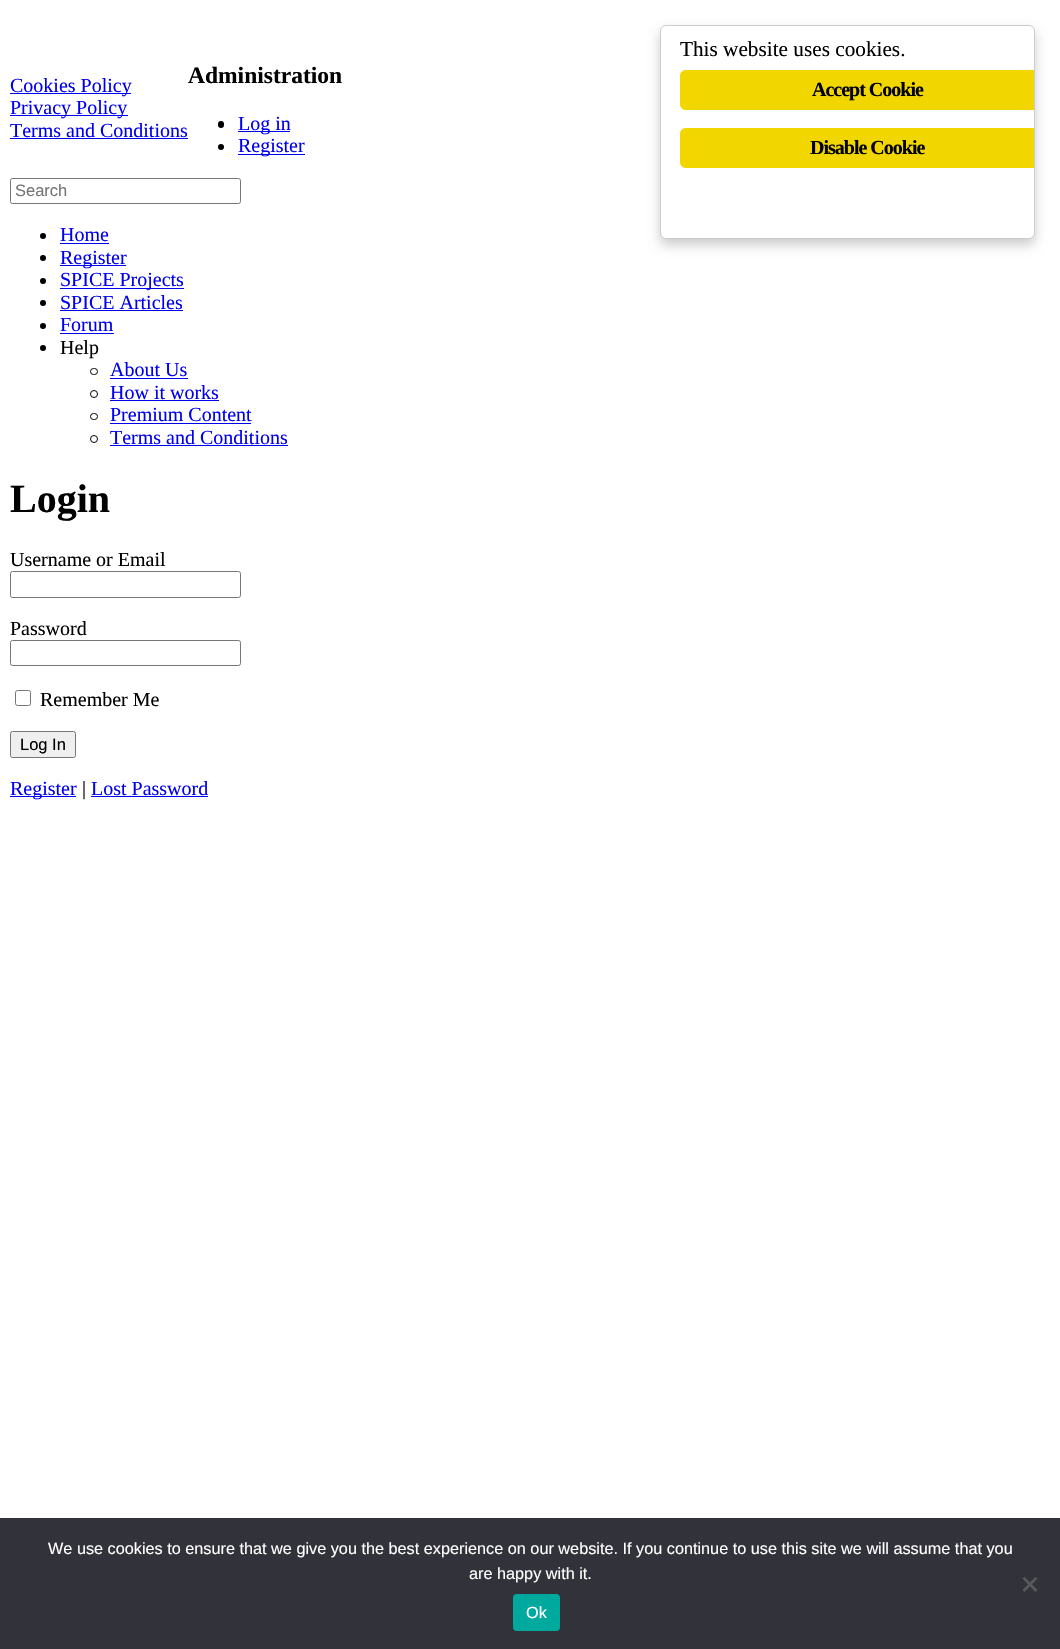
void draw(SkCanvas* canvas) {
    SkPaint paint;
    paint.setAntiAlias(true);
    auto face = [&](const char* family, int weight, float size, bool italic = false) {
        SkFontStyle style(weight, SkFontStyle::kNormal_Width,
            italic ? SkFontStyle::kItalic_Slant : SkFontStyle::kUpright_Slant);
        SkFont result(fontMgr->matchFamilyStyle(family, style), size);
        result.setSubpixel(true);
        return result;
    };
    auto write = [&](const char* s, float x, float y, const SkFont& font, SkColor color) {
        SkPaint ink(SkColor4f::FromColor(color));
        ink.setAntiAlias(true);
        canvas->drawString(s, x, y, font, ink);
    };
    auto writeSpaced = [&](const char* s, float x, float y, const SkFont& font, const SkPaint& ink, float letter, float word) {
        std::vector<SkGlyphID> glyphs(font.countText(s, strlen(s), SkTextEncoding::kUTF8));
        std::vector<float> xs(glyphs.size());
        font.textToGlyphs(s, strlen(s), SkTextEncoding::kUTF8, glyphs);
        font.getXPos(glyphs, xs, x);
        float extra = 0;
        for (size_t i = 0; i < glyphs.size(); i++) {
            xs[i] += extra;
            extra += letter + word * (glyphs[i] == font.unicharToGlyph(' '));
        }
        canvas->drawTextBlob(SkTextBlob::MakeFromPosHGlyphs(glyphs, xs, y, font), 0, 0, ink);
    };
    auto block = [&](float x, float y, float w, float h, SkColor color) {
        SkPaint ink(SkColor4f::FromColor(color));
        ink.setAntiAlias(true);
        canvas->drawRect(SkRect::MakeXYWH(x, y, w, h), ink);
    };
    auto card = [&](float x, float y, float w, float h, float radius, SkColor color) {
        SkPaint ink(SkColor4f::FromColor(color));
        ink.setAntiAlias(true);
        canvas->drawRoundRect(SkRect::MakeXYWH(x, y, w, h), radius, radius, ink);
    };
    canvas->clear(SK_ColorWHITE);
    block(10, 93, 121, 1, SkColorSetRGB(0, 0, 238));
    auto kFont1 = face("Liberation Serif", 400, 20);
    write("Cookies Policy", 10, 92, kFont1, SkColorSetRGB(0, 0, 238));
    block(10, 115, 118, 1, SkColorSetRGB(0, 0, 238));
    write("Privacy Policy", 10, 114, kFont1, SkColorSetRGB(0, 0, 238));
    write("Terms and Conditions", 10, 137, kFont1, SkColorSetRGB(0, 0, 238));
    block(10, 138, 178, 1, SkColorSetRGB(0, 0, 238));
    auto kFont2 = face("Liberation Serif", 700, 23.5f);
    write("Administration", 188, 83, kFont2, SK_ColorBLACK);
    card(218, 121, 6, 7, 3, SK_ColorBLACK);
    block(238, 131, 52, 1, SkColorSetRGB(0, 0, 238));
    write("Log in", 238, 130, kFont1, SkColorSetRGB(0, 0, 238));
    paint.setColor(SK_ColorBLACK);
    canvas->drawCircle(221, 147, 3, paint);
    block(238, 154, 67, 1, SkColorSetRGB(0, 0, 238));
    write("Register", 238, 152, kFont1, SkColorSetRGB(0, 0, 238));
    paint.setStyle(SkPaint::kStroke_Style);
    paint.setStrokeWidth(1);
    paint.setColor(SkColorSetRGB(118, 118, 118));
    canvas->drawRoundRect(SkRect::MakeXYWH(10.5f, 178.5f, 230, 25), 2, 2, paint);
    auto kFont3 = face("Liberation Sans", 400, 16.5f);
    write("Search", 15, 196, kFont3, SkColorSetRGB(117, 117, 117));
    paint.setStyle(SkPaint::kFill_Style);
    paint.setColor(SK_ColorBLACK);
    canvas->drawCircle(43, 236, 3, paint);
    write("Home", 60, 241, kFont1, SkColorSetRGB(0, 0, 238));
    block(60, 243, 49, 1, SkColorSetRGB(0, 0, 238));
    canvas->drawCircle(43, 258, 3, paint);
    block(60, 265, 66, 1, SkColorSetRGB(0, 0, 238));
    write("Register", 60, 264, kFont1, SkColorSetRGB(0, 0, 238));
    canvas->drawCircle(43, 281, 3, paint);
    block(60, 288, 124, 1, SkColorSetRGB(0, 0, 238));
    write("SPICE Projects", 60, 286, kFont1, SkColorSetRGB(0, 0, 238));
    canvas->drawCircle(43, 303, 3, paint);
    write("SPICE Articles", 60, 309, kFont1, SkColorSetRGB(0, 0, 238));
    block(60, 310, 123, 1, SkColorSetRGB(0, 0, 238));
    canvas->drawCircle(43, 326, 3, paint);
    write("Forum", 60, 331, kFont1, SkColorSetRGB(0, 0, 238));
    block(60, 333, 54, 1, SkColorSetRGB(0, 0, 238));
    canvas->drawCircle(43, 348, 3, paint);
    write("Help", 60, 354, kFont1, SK_ColorBLACK);
    paint.setStyle(SkPaint::kStroke_Style);
    canvas->drawRoundRect(SkRect::MakeXYWH(90.5f, 368.5f, 7, 6), 3, 3, paint);
    write("About Us", 110, 376, kFont1, SkColorSetRGB(0, 0, 238));
    block(110, 378, 78, 1, SkColorSetRGB(0, 0, 238));
    canvas->drawCircle(94, 394, 3.5f, paint);
    write("How it works", 110, 399, kFont1, SkColorSetRGB(0, 0, 238));
    block(110, 400, 109, 1, SkColorSetRGB(0, 0, 238));
    canvas->drawRoundRect(SkRect::MakeXYWH(90.5f, 413.5f, 7, 6), 3, 3, paint);
    write("Premium Content", 110, 421, kFont1, SkColorSetRGB(0, 0, 238));
    block(110, 423, 141, 1, SkColorSetRGB(0, 0, 238));
    canvas->drawCircle(94, 439, 3.5f, paint);
    write("Terms and Conditions", 110, 444, kFont1, SkColorSetRGB(0, 0, 238));
    block(110, 445, 178, 1, SkColorSetRGB(0, 0, 238));
    auto kFont4 = face("Liberation Serif", 700, 40);
    write("Login", 10, 512, kFont4, SK_ColorBLACK);
    write("Username or Email", 10, 566, kFont1, SK_ColorBLACK);
    paint.setColor(SkColorSetRGB(118, 118, 118));
    canvas->drawRoundRect(SkRect::MakeXYWH(10.5f, 571.5f, 230, 26), 2, 2, paint);
    write("Password", 10, 635, kFont1, SK_ColorBLACK);
    canvas->drawRoundRect(SkRect::MakeXYWH(10.5f, 640.5f, 230, 25), 2, 2, paint);
    canvas->drawRoundRect(SkRect::MakeXYWH(15.5f, 690.5f, 15, 15), 2, 2, paint);
    write("Remember Me", 40, 706, kFont1, SK_ColorBLACK);
    paint.setStyle(SkPaint::kFill_Style);
    paint.setColor(SkColorSetRGB(239, 239, 239));
    canvas->drawRoundRect(SkRect::MakeXYWH(10.5f, 731.5f, 65, 26), 2, 2, paint);
    paint.setStyle(SkPaint::kStroke_Style);
    paint.setColor(SkColorSetRGB(118, 118, 118));
    canvas->drawRoundRect(SkRect::MakeXYWH(10.5f, 731.5f, 65, 26), 2, 2, paint);
    write("Log In", 20, 750, kFont3, SK_ColorBLACK);
    block(10, 796, 66, 1, SkColorSetRGB(0, 0, 238));
    write("Register", 10, 795, kFont1, SkColorSetRGB(0, 0, 238));
    write("|", 82, 795, kFont1, SK_ColorBLACK);
    write("Lost Password", 91, 795, kFont1, SkColorSetRGB(0, 0, 238));
    block(91, 796, 117, 1, SkColorSetRGB(0, 0, 238));
    paint.setStyle(SkPaint::kFill_Style);
    paint.setColor(SkColorSetARGB(51, 0, 0, 0));
    paint.setMaskFilter(SkMaskFilter::MakeBlur(kNormal_SkBlurStyle, 6));
    canvas->drawRoundRect(SkRect::MakeXYWH(660, 31, 375, 214), 6, 6, paint);
    paint.setMaskFilter(nullptr);
    paint.setColor(SK_ColorWHITE);
    canvas->drawRoundRect(SkRect::MakeXYWH(660.5f, 25.5f, 374, 213), 5.5f, 5.5f, paint);
    paint.setStyle(SkPaint::kStroke_Style);
    paint.setColor(SkColorSetRGB(204, 204, 204));
    canvas->drawRoundRect(SkRect::MakeXYWH(660.5f, 25.5f, 374, 213), 5.5f, 5.5f, paint);
    auto kFont5 = face("Liberation Serif", 400, 21.25f);
    write("This website uses cookies.", 680, 56, kFont5, SK_ColorBLACK);
    paint.setStyle(SkPaint::kFill_Style);
    paint.setColor(SkColorSetRGB(241, 214, 0));
    canvas->drawPath(SkPathBuilder().moveTo(686, 70).lineTo(1034, 70).lineTo(1034, 110).lineTo(686, 110).cubicTo(682.5f, 110, 680, 107.5f, 680, 104).lineTo(680, 76).cubicTo(680, 72.5f, 682.5f, 70, 686, 70).close().detach(), paint);
    auto kFont6 = face("Liberation Serif", 700, 20);
    paint.setColor(SK_ColorBLACK);
    writeSpaced("Accept Cookie", 812, 96, kFont6, paint, -1, 0);
    paint.setColor(SkColorSetRGB(241, 214, 0));
    canvas->drawPath(SkPathBuilder().moveTo(686, 128).lineTo(1034, 128).lineTo(1034, 168).lineTo(686, 168).cubicTo(682.5f, 168, 680, 165.5f, 680, 162).lineTo(680, 134).cubicTo(680, 130.5f, 682.5f, 128, 686, 128).close().detach(), paint);
    paint.setColor(SK_ColorBLACK);
    writeSpaced("Disable Cookie", 810, 154, kFont6, paint, -1, 0);
    block(0, 1518, 1060, 131, SkColorSetRGB(50, 50, 58));
    auto kFont7 = face("Liberation Sans", 400, 16.25f);
    write("We use cookies to ensure that we give you the best experience on our website. If you continue to use this site we will assume that you", 48, 1554, kFont7, SK_ColorWHITE);
    write("are happy with it.", 469, 1579, kFont7, SK_ColorWHITE);
    paint.setColor(SkColorSetRGB(89, 89, 93));
    canvas->drawPath(SkPathBuilder().moveTo(1035.5f, 1577).lineTo(1037.5f, 1578.5f).lineTo(1024.5f, 1592).lineTo(1022.5f, 1590).close().detach(), paint);
    canvas->drawPath(SkPathBuilder().moveTo(1022.5f, 1578.5f).lineTo(1024.5f, 1577).lineTo(1037.5f, 1590).lineTo(1035.5f, 1592).close().detach(), paint);
    card(513, 1594, 47, 37, 4, SkColorSetRGB(0, 169, 157));
    write("Ok", 526, 1618, kFont7, SK_ColorWHITE);
}
